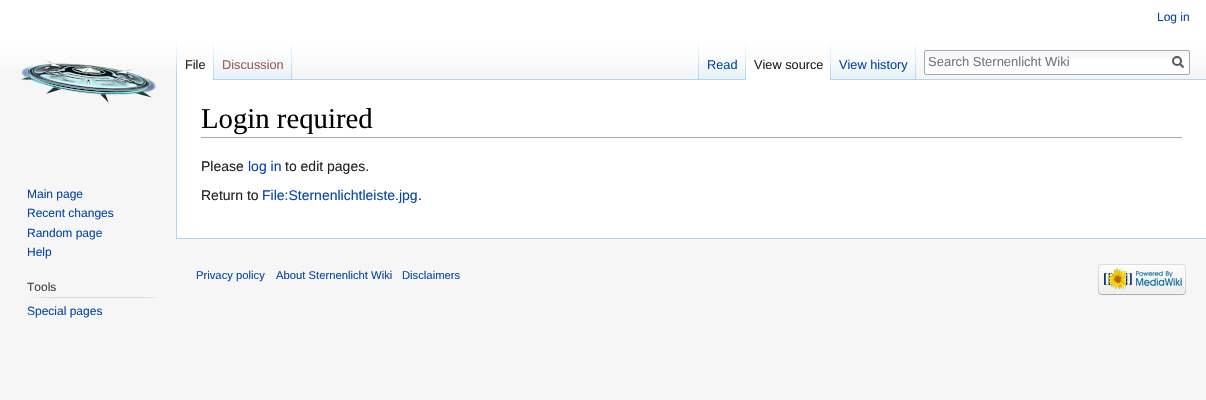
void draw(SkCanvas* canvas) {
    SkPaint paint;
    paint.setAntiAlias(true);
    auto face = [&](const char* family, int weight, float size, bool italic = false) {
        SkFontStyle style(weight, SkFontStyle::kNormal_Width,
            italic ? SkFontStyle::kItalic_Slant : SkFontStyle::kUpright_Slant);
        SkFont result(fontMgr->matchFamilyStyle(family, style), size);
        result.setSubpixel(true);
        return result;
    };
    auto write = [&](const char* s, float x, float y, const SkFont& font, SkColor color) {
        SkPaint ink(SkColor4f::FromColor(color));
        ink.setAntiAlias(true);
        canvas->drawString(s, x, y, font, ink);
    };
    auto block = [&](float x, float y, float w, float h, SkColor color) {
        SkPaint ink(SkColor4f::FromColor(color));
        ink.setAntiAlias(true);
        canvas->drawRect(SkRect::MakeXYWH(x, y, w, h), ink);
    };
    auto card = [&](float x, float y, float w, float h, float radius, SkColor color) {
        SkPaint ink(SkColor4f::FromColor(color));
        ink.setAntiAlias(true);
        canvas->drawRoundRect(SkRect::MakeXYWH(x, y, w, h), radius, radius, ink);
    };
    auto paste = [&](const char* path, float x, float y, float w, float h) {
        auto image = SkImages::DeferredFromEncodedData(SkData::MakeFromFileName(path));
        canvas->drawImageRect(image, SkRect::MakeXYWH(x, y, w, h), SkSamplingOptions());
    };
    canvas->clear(SkColorSetRGB(246, 246, 246));
    {
        const SkColor colors[] = {SK_ColorWHITE, SkColorSetRGB(246, 246, 246)};
        const float stops[] = {0.5f, 1};
        const SkPoint ends[] = {{603, 0}, {603, 80}};
        paint.setShader(SkGradientShader::MakeLinear(ends, colors, stops, 2, SkTileMode::kClamp));
        paint.setAlpha(255);
    }
    canvas->drawRect(SkRect::MakeXYWH(0, 0, 1206, 69), paint);
    auto kFont1 = face("Liberation Sans", 400, 12);
    write("Log in", 1157, 21, kFont1, SkColorSetRGB(6, 69, 173));
    paste("pic1.png", 176, 40, 1, 39);
    block(177, 60, 36, 20, SK_ColorWHITE);
    paste("pic2.png", 213, 40, 1, 40);
    auto kFont2 = face("Liberation Sans", 400, 12.75f);
    write("File", 185, 69, kFont2, SkColorSetRGB(34, 34, 34));
    paste("pic3.png", 214, 40, 77, 39);
    paste("pic1.png", 291, 40, 1, 39);
    write("Discussion", 222, 69, kFont2, SkColorSetRGB(165, 88, 88));
    paste("pic1.png", 698, 40, 1, 39);
    paste("pic4.png", 699, 62, 46, 17);
    paste("pic1.png", 745, 40, 1, 39);
    write("Read", 707, 69, kFont2, SkColorSetRGB(6, 69, 173));
    block(214, 79, 992, 1, SkColorSetRGB(167, 215, 249));
    block(746, 60, 84, 20, SK_ColorWHITE);
    paste("pic2.png", 830, 40, 1, 40);
    write("View source", 754, 69, kFont2, SkColorSetRGB(34, 34, 34));
    paste("pic5.png", 831, 40, 84, 39);
    paste("pic1.png", 915, 40, 1, 39);
    write("View history", 839, 69, kFont2, SkColorSetRGB(6, 69, 173));
    card(924, 50, 266, 25, 2, SK_ColorWHITE);
    paste("pic6.png", 924, 51, 266, 8);
    paint.setStyle(SkPaint::kStroke_Style);
    paint.setStrokeWidth(1);
    paint.setShader(nullptr);
    paint.setColor(SkColorSetRGB(162, 169, 177));
    canvas->drawRoundRect(SkRect::MakeXYWH(924.5f, 50.5f, 265, 24), 1.5f, 1.5f, paint);
    auto kFont3 = face("Liberation Sans", 400, 13);
    write("Search Sternenlicht Wiki", 928, 66, kFont3, SkColorSetRGB(114, 119, 125));
    paint.setStrokeWidth(2);
    paint.setColor(SkColorSetRGB(84, 89, 93));
    canvas->drawPath(SkPathBuilder().moveTo(1183.5f, 67.5f).lineTo(1179.5f, 63.5f).detach(), paint);
    canvas->drawCircle(1177, 61, 4, paint);
    paste("pic7.png", 21, 59, 135, 44);
    write("Main page", 27, 198, kFont1, SkColorSetRGB(6, 69, 173));
    write("Recent changes", 27, 217, kFont1, SkColorSetRGB(6, 69, 173));
    write("Random page", 27, 237, kFont1, SkColorSetRGB(6, 69, 173));
    write("Help", 27, 256, kFont1, SkColorSetRGB(6, 69, 173));
    write("Tools", 27, 291, kFont1, SkColorSetRGB(68, 68, 68));
    paste("pic8.png", 30, 297, 128, 1);
    write("Special pages", 27, 315, kFont1, SkColorSetRGB(6, 69, 173));
    block(177, 80, 1029, 158, SK_ColorWHITE);
    block(176, 238, 1030, 1, SkColorSetRGB(167, 215, 249));
    block(176, 79, 1, 160, SkColorSetRGB(167, 215, 249));
    block(201, 137, 981, 1, SkColorSetRGB(162, 169, 177));
    auto kFont4 = face("Liberation Serif", 400, 28.75f);
    write("Login required", 201, 128, kFont4, SK_ColorBLACK);
    auto kFont5 = face("Liberation Sans", 400, 14);
    write("Please", 201, 171, kFont5, SkColorSetRGB(34, 34, 34));
    write("log in", 248, 171, kFont5, SkColorSetRGB(6, 69, 173));
    write("to edit pages.", 285, 171, kFont5, SkColorSetRGB(34, 34, 34));
    write("Return to", 201, 200, kFont5, SkColorSetRGB(34, 34, 34));
    write("File:Sternenlichtleiste.jpg", 262, 200, kFont5, SkColorSetRGB(6, 69, 173));
    write(".", 418, 200, kFont5, SkColorSetRGB(34, 34, 34));
    auto kFont6 = face("Liberation Sans", 400, 11.25f);
    write("Privacy policy", 196, 279, kFont6, SkColorSetRGB(6, 69, 173));
    write("About Sternenlicht Wiki", 276, 279, kFont6, SkColorSetRGB(6, 69, 173));
    write("Disclaimers", 402, 279, kFont6, SkColorSetRGB(6, 69, 173));
    paste("pic9.png", 1098, 264, 88, 31);
}
